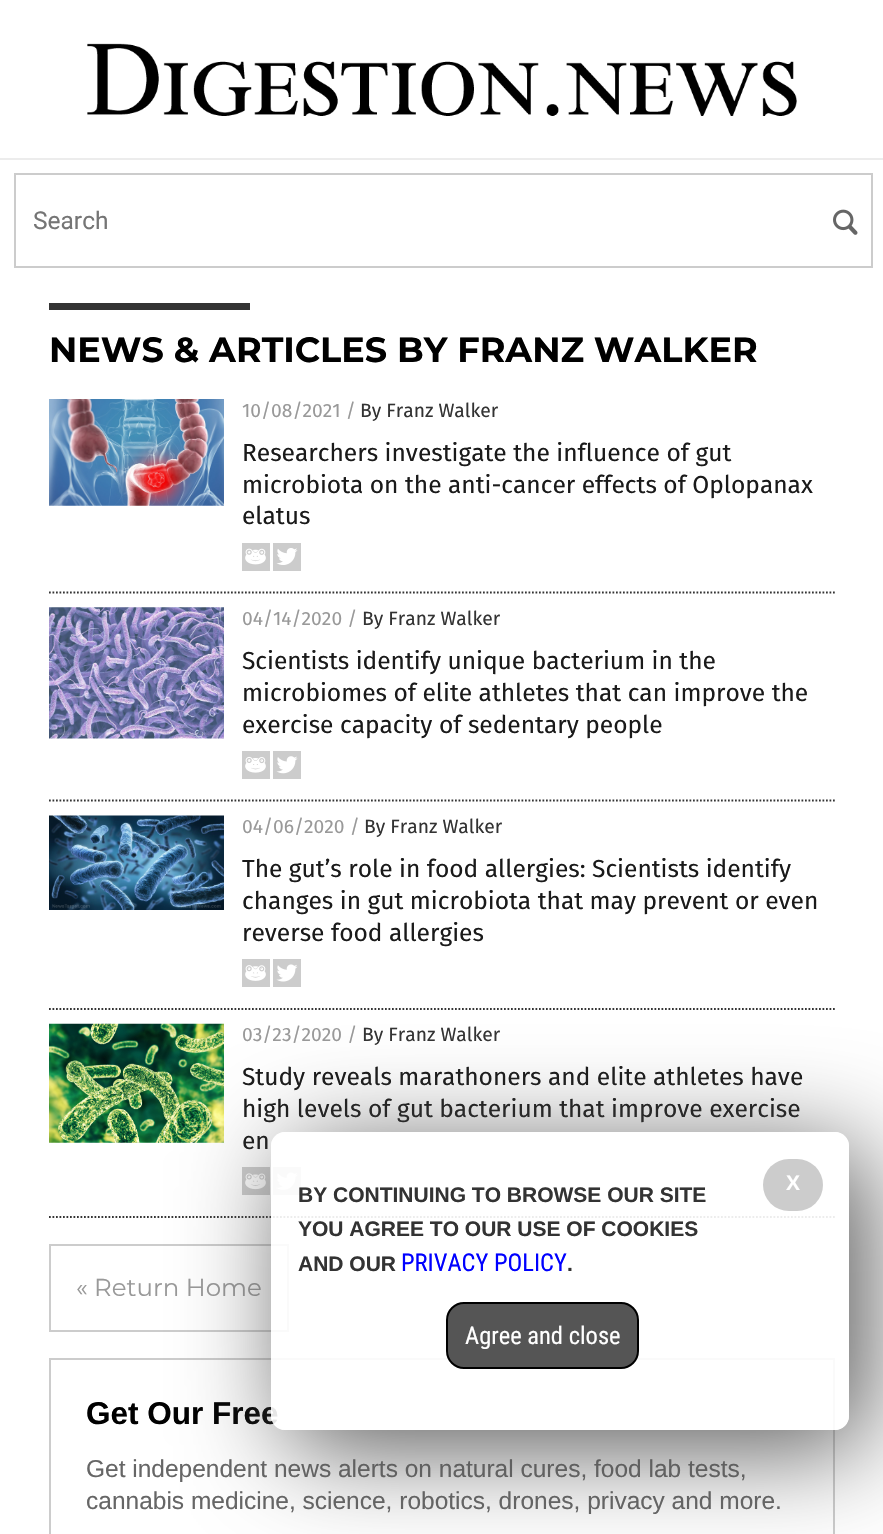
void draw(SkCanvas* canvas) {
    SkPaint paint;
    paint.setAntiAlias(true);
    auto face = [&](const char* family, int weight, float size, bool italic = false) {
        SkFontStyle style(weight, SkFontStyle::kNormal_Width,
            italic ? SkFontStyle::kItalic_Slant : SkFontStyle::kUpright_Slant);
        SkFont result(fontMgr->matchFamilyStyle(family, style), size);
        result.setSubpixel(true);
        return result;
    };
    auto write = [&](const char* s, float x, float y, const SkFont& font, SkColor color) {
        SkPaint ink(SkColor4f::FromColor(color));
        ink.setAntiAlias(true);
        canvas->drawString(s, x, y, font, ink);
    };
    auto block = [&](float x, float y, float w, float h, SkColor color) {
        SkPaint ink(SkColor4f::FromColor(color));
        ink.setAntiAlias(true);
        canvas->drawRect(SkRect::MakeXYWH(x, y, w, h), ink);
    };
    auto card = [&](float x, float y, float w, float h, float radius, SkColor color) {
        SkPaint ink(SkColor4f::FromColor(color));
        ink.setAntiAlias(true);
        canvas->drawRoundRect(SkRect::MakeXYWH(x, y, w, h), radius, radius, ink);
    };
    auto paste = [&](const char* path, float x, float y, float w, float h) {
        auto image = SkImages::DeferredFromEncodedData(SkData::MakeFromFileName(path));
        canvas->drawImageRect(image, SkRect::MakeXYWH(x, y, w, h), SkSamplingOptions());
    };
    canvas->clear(SK_ColorWHITE);
    paste("pic1.png", 87, 43, 710, 73);
    block(0, 158, 883, 2, SkColorSetRGB(236, 236, 236));
    paint.setStyle(SkPaint::kStroke_Style);
    paint.setStrokeWidth(2);
    paint.setColor(SkColorSetRGB(204, 204, 204));
    canvas->drawRect(SkRect::MakeXYWH(15, 174, 857, 93), paint);
    auto kFont1 = face("Roboto", 400, 24.5f);
    write("Search", 33, 229, kFont1, SkColorSetRGB(117, 117, 117));
    paste("pic2.png", 833, 209, 25, 26);
    block(49, 303, 201, 7, SkColorSetRGB(52, 52, 52));
    auto kFont2 = face("Montserrat", 700, 35);
    write("NEWS & ARTICLES BY FRANZ WALKER", 49, 362, kFont2, SK_ColorBLACK);
    paint.setStrokeWidth(1.8f);
    paint.setColor(SkColorSetRGB(52, 52, 52));
    paint.setPathEffect(SkDashPathEffect::Make({{1.75f, 1.75f}}, 0));
    canvas->drawPath(SkPathBuilder().moveTo(49, 592.5f).lineTo(835, 592.5f).detach(), paint);
    paint.setPathEffect(nullptr);
    paste("pic3.png", 49, 399, 175, 107);
    auto kFont3 = face("Fira Sans", 400, 19.25f);
    write("10/08/2021 /", 242, 417, kFont3, SkColorSetRGB(153, 153, 153));
    write("By Franz Walker", 360, 417, kFont3, SkColorSetRGB(51, 51, 51));
    auto kFont4 = face("Fira Sans", 400, 24.5f);
    write("Researchers investigate the influence of gut", 242, 461, kFont4, SkColorSetRGB(26, 26, 26));
    write("microbiota on the anti-cancer effects of Oplopanax", 242, 493, kFont4, SkColorSetRGB(26, 26, 26));
    write("elatus", 242, 524, kFont4, SkColorSetRGB(26, 26, 26));
    paste("pic4.png", 242, 543, 28, 28);
    paste("pic5.png", 273, 543, 28, 28);
    paint.setPathEffect(SkDashPathEffect::Make({{1.75f, 1.75f}}, 0));
    canvas->drawPath(SkPathBuilder().moveTo(49, 800.5f).lineTo(835, 800.5f).detach(), paint);
    paint.setPathEffect(nullptr);
    paste("pic6.png", 49, 607, 175, 132);
    write("04/14/2020 /", 242, 625, kFont3, SkColorSetRGB(153, 153, 153));
    write("By Franz Walker", 362, 625, kFont3, SkColorSetRGB(51, 51, 51));
    write("Scientists identify unique bacterium in the", 242, 669, kFont4, SkColorSetRGB(26, 26, 26));
    write("microbiomes of elite athletes that can improve the", 242, 701, kFont4, SkColorSetRGB(26, 26, 26));
    write("exercise capacity of sedentary people", 242, 733, kFont4, SkColorSetRGB(26, 26, 26));
    paste("pic7.png", 242, 751, 28, 28);
    paste("pic8.png", 273, 751, 28, 28);
    paint.setPathEffect(SkDashPathEffect::Make({{1.75f, 1.75f}}, 0));
    canvas->drawPath(SkPathBuilder().moveTo(49, 1009).lineTo(835, 1009).detach(), paint);
    paint.setPathEffect(nullptr);
    paste("pic9.png", 49, 815, 175, 95);
    write("04/06/2020 /", 242, 833, kFont3, SkColorSetRGB(153, 153, 153));
    write("By Franz Walker", 364, 833, kFont3, SkColorSetRGB(51, 51, 51));
    write("The gut’s role in food allergies: Scientists identify", 242, 877, kFont4, SkColorSetRGB(26, 26, 26));
    write("changes in gut microbiota that may prevent or even", 242, 909, kFont4, SkColorSetRGB(26, 26, 26));
    write("reverse food allergies", 242, 941, kFont4, SkColorSetRGB(26, 26, 26));
    paste("pic10.png", 242, 959, 28, 28);
    paste("pic11.png", 273, 959, 28, 28);
    paint.setPathEffect(SkDashPathEffect::Make({{1.75f, 1.75f}}, 0));
    canvas->drawPath(SkPathBuilder().moveTo(49, 1217).lineTo(835, 1217).detach(), paint);
    paint.setPathEffect(nullptr);
    paste("pic12.png", 49, 1023, 175, 120);
    write("03/23/2020 /", 242, 1041, kFont3, SkColorSetRGB(153, 153, 153));
    write("By Franz Walker", 362, 1041, kFont3, SkColorSetRGB(51, 51, 51));
    write("Study reveals marathoners and elite athletes have", 242, 1085, kFont4, SkColorSetRGB(26, 26, 26));
    write("high levels of gut bacterium that improve exercise", 242, 1117, kFont4, SkColorSetRGB(26, 26, 26));
    write("en", 242, 1149, kFont4, SkColorSetRGB(26, 26, 26));
    paste("pic13.png", 242, 1167, 28, 28);
    paste("pic14.png", 273, 1167, 28, 28);
    paint.setStrokeWidth(2);
    paint.setColor(SkColorSetRGB(204, 204, 204));
    canvas->drawRect(SkRect::MakeXYWH(50, 1245, 238, 86), paint);
    auto kFont5 = face("Montserrat", 400, 24.5f);
    write("« Return Home", 76, 1296, kFont5, SkColorSetRGB(153, 153, 153));
    canvas->drawRect(SkRect::MakeXYWH(50, 1359, 784, 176), paint);
    auto kFont6 = face("Liberation Sans", 700, 31.5f);
    write("Get Our Free", 86, 1424, kFont6, SK_ColorBLACK);
    auto kFont7 = face("Liberation Sans", 400, 24.5f);
    write("Get independent news alerts on natural cures, food lab tests,", 86, 1477, kFont7, SkColorSetRGB(102, 102, 102));
    write("cannabis medicine, science, robotics, drones, privacy and more.", 86, 1509, kFont7, SkColorSetRGB(102, 102, 102));
    canvas->save();
    canvas->clipPath(SkPathBuilder(SkPathFillType::kEvenOdd).moveTo(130, 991).lineTo(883, 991).lineTo(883, 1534).lineTo(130, 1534).close().moveTo(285, 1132).lineTo(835, 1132).cubicTo(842.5f, 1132, 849, 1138.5f, 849, 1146).lineTo(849, 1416).cubicTo(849, 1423.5f, 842.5f, 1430, 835, 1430).lineTo(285, 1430).cubicTo(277.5f, 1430, 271, 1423.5f, 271, 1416).lineTo(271, 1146).cubicTo(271, 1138.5f, 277.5f, 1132, 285, 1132).close().detach(), true);
    paint.setStyle(SkPaint::kFill_Style);
    paint.setColor(SkColorSetRGB(85, 85, 85));
    paint.setMaskFilter(SkMaskFilter::MakeBlur(kNormal_SkBlurStyle, 52.5f));
    canvas->drawRoundRect(SkRect::MakeXYWH(289, 1150, 577, 297), 14, 14, paint);
    paint.setMaskFilter(nullptr);
    canvas->restore();
    card(271, 1132, 578, 298, 14, SkColorSetARGB(230, 255, 255, 255));
    card(763, 1159, 60, 52, 26, SkColorSetRGB(204, 204, 204));
    auto kFont8 = face("Liberation Sans", 700, 21);
    write("X", 786, 1190, kFont8, SK_ColorWHITE);
    write("BY CONTINUING TO BROWSE OUR SITE", 298, 1202, kFont8, SkColorSetRGB(51, 51, 51));
    write("YOU AGREE TO OUR USE OF COOKIES", 298, 1236, kFont8, SkColorSetRGB(51, 51, 51));
    write("AND OUR", 298, 1271, kFont8, SkColorSetRGB(51, 51, 51));
    auto kFont9 = face("Roboto Condensed", 400, 24.5f);
    write("PRIVACY POLICY", 401, 1271, kFont9, SkColorSetRGB(0, 0, 255));
    write(".", 567, 1271, kFont8, SkColorSetRGB(51, 51, 51));
    canvas->drawRoundRect(SkRect::MakeXYWH(447, 1303, 191, 65), 17, 17, paint);
    paint.setStyle(SkPaint::kStroke_Style);
    paint.setColor(SK_ColorBLACK);
    canvas->drawRoundRect(SkRect::MakeXYWH(447, 1303, 191, 65), 17, 17, paint);
    write("Agree and close", 465, 1344, kFont9, SK_ColorWHITE);
}
